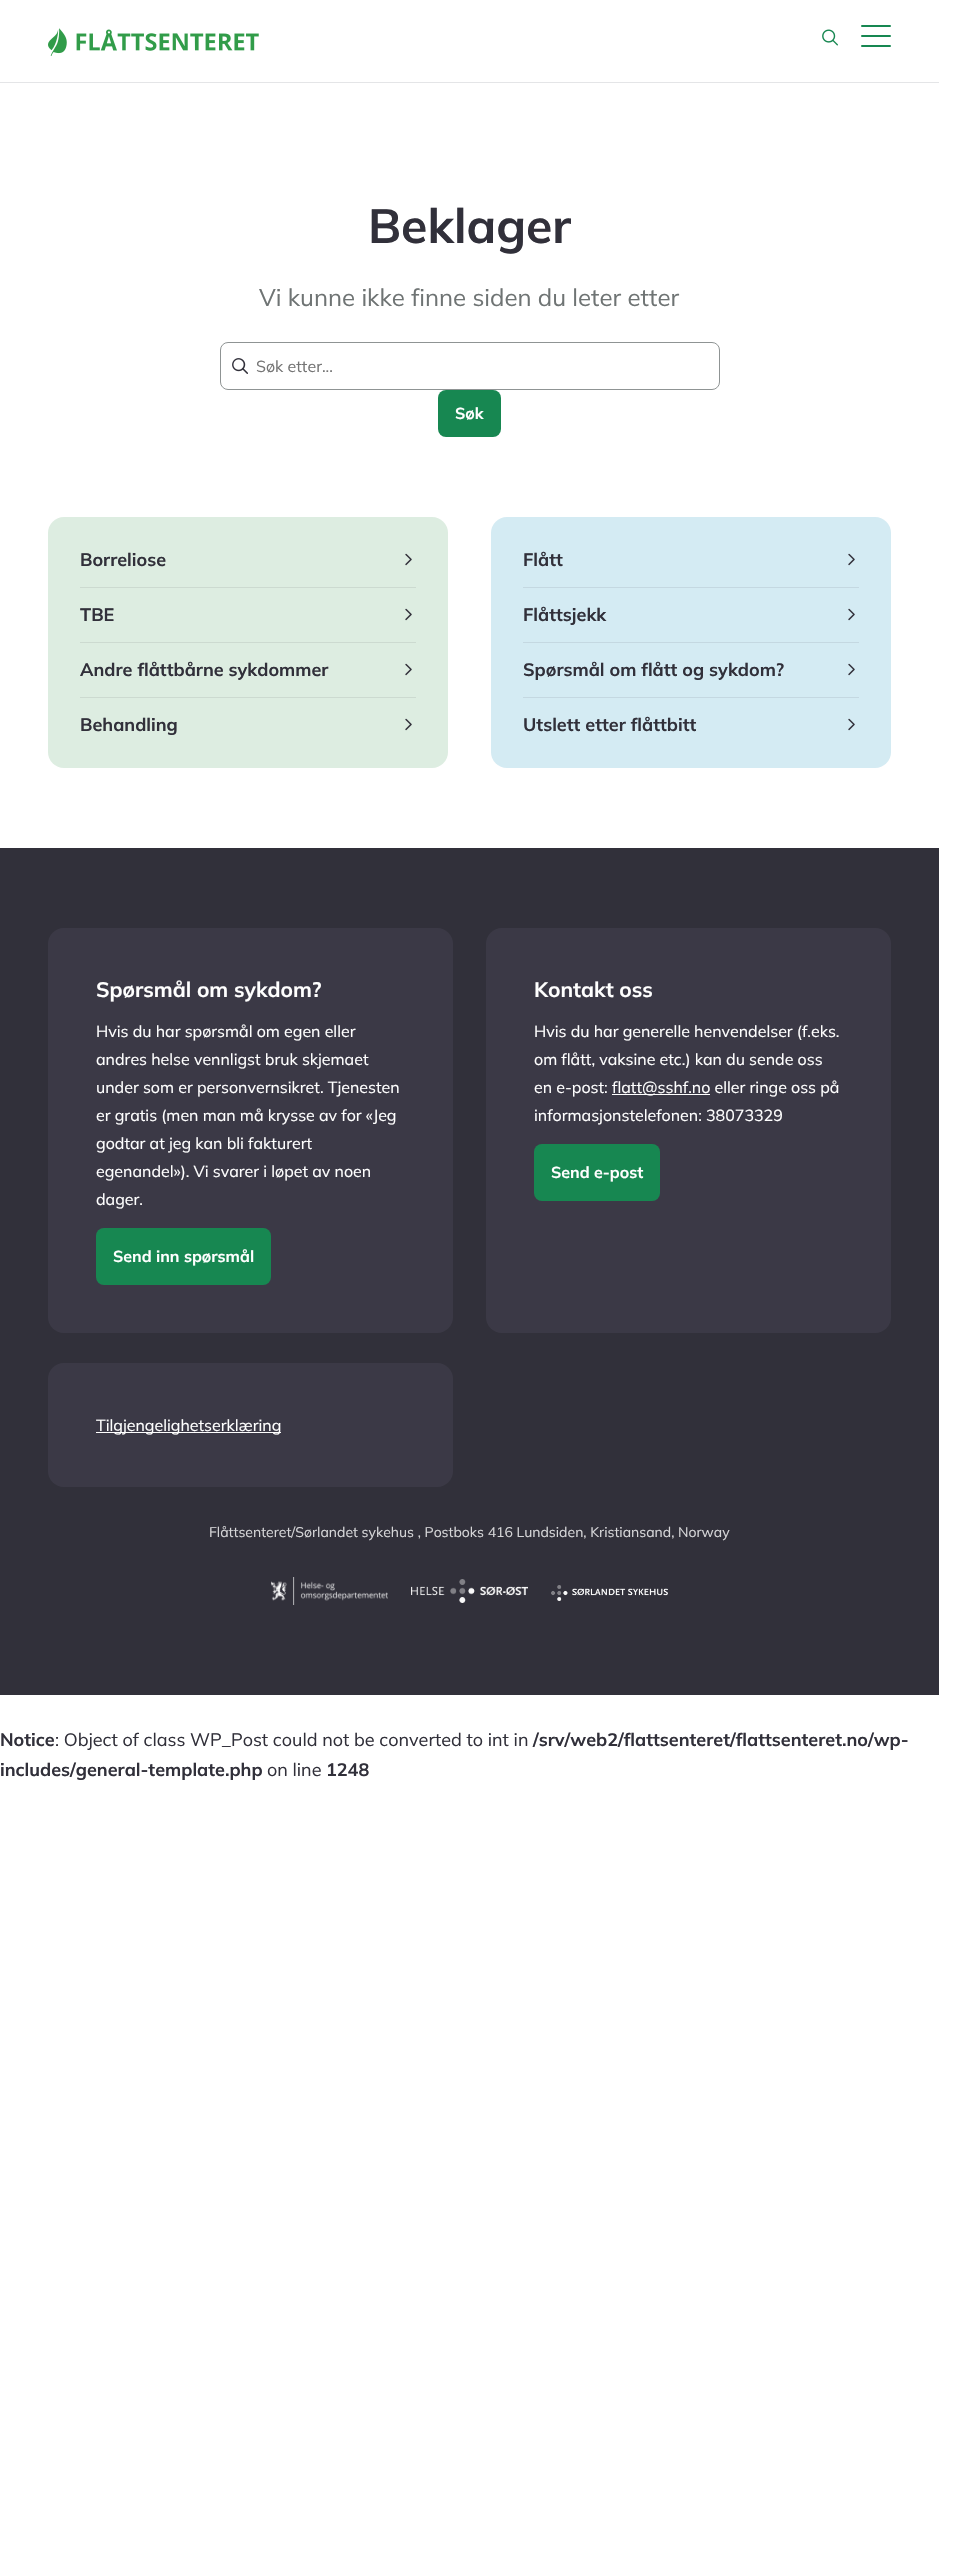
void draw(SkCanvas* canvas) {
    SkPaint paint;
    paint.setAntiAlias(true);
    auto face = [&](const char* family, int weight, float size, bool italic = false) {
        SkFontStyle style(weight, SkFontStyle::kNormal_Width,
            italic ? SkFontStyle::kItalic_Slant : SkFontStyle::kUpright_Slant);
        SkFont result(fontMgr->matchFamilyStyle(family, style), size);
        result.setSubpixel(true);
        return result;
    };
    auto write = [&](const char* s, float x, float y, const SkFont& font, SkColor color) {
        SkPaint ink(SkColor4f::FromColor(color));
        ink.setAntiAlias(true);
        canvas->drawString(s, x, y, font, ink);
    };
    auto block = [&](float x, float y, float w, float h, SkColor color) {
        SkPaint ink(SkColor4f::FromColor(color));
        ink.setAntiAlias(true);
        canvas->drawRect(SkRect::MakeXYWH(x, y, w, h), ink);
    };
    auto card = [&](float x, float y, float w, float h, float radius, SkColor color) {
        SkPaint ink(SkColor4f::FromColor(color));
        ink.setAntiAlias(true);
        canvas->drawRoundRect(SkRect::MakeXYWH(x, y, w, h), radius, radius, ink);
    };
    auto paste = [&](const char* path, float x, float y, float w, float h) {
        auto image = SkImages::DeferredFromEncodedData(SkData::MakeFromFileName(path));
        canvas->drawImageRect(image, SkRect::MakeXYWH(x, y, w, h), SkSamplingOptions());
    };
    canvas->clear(SK_ColorWHITE);
    block(0, 82, 939, 1, SkColorSetRGB(228, 229, 231));
    paste("pic1.png", 48, 28, 211, 28);
    paste("pic2.png", 822, 29, 16, 17);
    card(861, 25, 30, 2, 1, SkColorSetRGB(23, 135, 81));
    card(861, 35, 30, 2, 1, SkColorSetRGB(23, 135, 81));
    card(861, 45, 30, 2, 1, SkColorSetRGB(23, 135, 81));
    auto kFont1 = face("Mulish", 700, 48);
    write("Beklager", 368, 243, kFont1, SkColorSetRGB(49, 48, 58));
    auto kFont2 = face("Mulish", 400, 24);
    write("Vi kunne ikke finne siden du leter etter", 259, 306, kFont2, SkColorSetRGB(111, 116, 116));
    paste("pic3.png", 232, 358, 16, 16);
    paint.setStyle(SkPaint::kStroke_Style);
    paint.setStrokeWidth(1);
    paint.setColor(SkColorSetRGB(143, 148, 148));
    canvas->drawRoundRect(SkRect::MakeXYWH(220.5f, 342.5f, 499, 47), 7.5f, 7.5f, paint);
    auto kFont3 = face("Mulish", 400, 16);
    write("Søk etter...", 256, 372, kFont3, SkColorSetRGB(117, 117, 117));
    card(438, 390, 63, 47, 8, SkColorSetRGB(23, 135, 81));
    auto kFont4 = face("Mulish", 700, 16);
    write("Søk", 455, 419, kFont4, SK_ColorWHITE);
    card(48, 517, 400, 251, 16, SkColorSetRGB(221, 237, 225));
    block(80, 587, 336, 1, SkColorSetRGB(204, 218, 208));
    auto kFont5 = face("Mulish", 700, 18);
    write("Borreliose", 80, 566, kFont5, SkColorSetRGB(49, 48, 58));
    paste("pic4.png", 405, 553, 7, 13);
    block(80, 642, 336, 1, SkColorSetRGB(204, 218, 208));
    write("TBE", 80, 621, kFont5, SkColorSetRGB(49, 48, 58));
    paste("pic4.png", 405, 608, 7, 13);
    block(80, 697, 336, 1, SkColorSetRGB(204, 218, 208));
    write("Andre flåttbårne sykdommer", 80, 676, kFont5, SkColorSetRGB(49, 48, 58));
    paste("pic4.png", 405, 663, 7, 13);
    write("Behandling", 80, 731, kFont5, SkColorSetRGB(49, 48, 58));
    paste("pic4.png", 405, 718, 7, 13);
    card(491, 517, 400, 251, 16, SkColorSetRGB(212, 235, 243));
    block(523, 587, 336, 1, SkColorSetRGB(196, 216, 225));
    write("Flått", 523, 566, kFont5, SkColorSetRGB(49, 48, 58));
    paste("pic5.png", 848, 553, 7, 13);
    block(523, 642, 336, 1, SkColorSetRGB(196, 216, 225));
    write("Flåttsjekk", 523, 621, kFont5, SkColorSetRGB(49, 48, 58));
    paste("pic5.png", 848, 608, 7, 13);
    block(523, 697, 336, 1, SkColorSetRGB(196, 216, 225));
    write("Spørsmål om flått og sykdom?", 523, 676, kFont5, SkColorSetRGB(49, 48, 58));
    paste("pic5.png", 848, 663, 7, 13);
    write("Utslett etter flåttbitt", 523, 731, kFont5, SkColorSetRGB(49, 48, 58));
    paste("pic5.png", 848, 718, 7, 13);
    block(0, 848, 939, 847, SkColorSetRGB(49, 48, 58));
    card(48, 928, 405, 405, 16, SkColorSetRGB(59, 57, 70));
    auto kFont6 = face("Mulish", 700, 21);
    write("Spørsmål om sykdom?", 96, 997, kFont6, SK_ColorWHITE);
    write("Hvis du har spørsmål om egen eller", 96, 1037, kFont3, SK_ColorWHITE);
    write("andres helse vennligst bruk skjemaet", 96, 1065, kFont3, SK_ColorWHITE);
    write("under som er personvernsikret. Tjenesten", 96, 1093, kFont3, SK_ColorWHITE);
    write("er gratis (men man må krysse av for «Jeg", 96, 1121, kFont3, SK_ColorWHITE);
    write("godtar at jeg kan bli fakturert", 96, 1149, kFont3, SK_ColorWHITE);
    write("egenandel»). Vi svarer i løpet av noen", 96, 1177, kFont3, SK_ColorWHITE);
    write("dager.", 96, 1205, kFont3, SK_ColorWHITE);
    card(96, 1228, 175, 57, 8, SkColorSetRGB(23, 135, 81));
    write("Send inn spørsmål", 113, 1262, kFont4, SK_ColorWHITE);
    card(486, 928, 405, 405, 16, SkColorSetRGB(59, 57, 70));
    write("Kontakt oss", 534, 997, kFont6, SK_ColorWHITE);
    write("Hvis du har generelle henvendelser (f.eks.", 534, 1037, kFont3, SK_ColorWHITE);
    write("om flått, vaksine etc.) kan du sende oss", 534, 1065, kFont3, SK_ColorWHITE);
    write("en e-post:", 534, 1093, kFont3, SK_ColorWHITE);
    block(612, 1094, 98, 1, SK_ColorWHITE);
    write("flatt@sshf.no eller ringe oss på", 612, 1093, kFont3, SK_ColorWHITE);
    write("informasjonstelefonen: 38073329", 534, 1121, kFont3, SK_ColorWHITE);
    card(534, 1144, 126, 57, 8, SkColorSetRGB(23, 135, 81));
    write("Send e-post", 551, 1178, kFont4, SK_ColorWHITE);
    card(48, 1363, 405, 124, 16, SkColorSetRGB(59, 57, 70));
    block(96, 1432, 185, 1, SK_ColorWHITE);
    write("Tilgjengelighetserklæring", 96, 1431, kFont3, SK_ColorWHITE);
    auto kFont7 = face("Mulish", 400, 14);
    write("Flåttsenteret/Sørlandet sykehus , Postboks 416 Lundsiden, Kristiansand, Norway", 209, 1537, kFont7, SkColorSetRGB(214, 214, 216));
    paste("pic6.png", 271, 1577, 117, 28);
    paste("pic7.png", 411, 1579, 117, 24);
    paste("pic8.png", 551, 1585, 117, 16);
    write("Notice", 0, 1746, kFont5, SkColorSetRGB(49, 48, 58));
    auto kFont8 = face("Mulish", 400, 18);
    write(": Object of class WP_Post could not be converted to int in", 55, 1746, kFont8, SkColorSetRGB(49, 48, 58));
    write("/srv/web2/flattsenteret/flattsenteret.no/wp-", 533, 1746, kFont5, SkColorSetRGB(49, 48, 58));
    write("includes/general-template.php", 0, 1776, kFont5, SkColorSetRGB(49, 48, 58));
    write("on line", 267, 1776, kFont8, SkColorSetRGB(49, 48, 58));
    write("1248", 326, 1776, kFont5, SkColorSetRGB(49, 48, 58));
}
